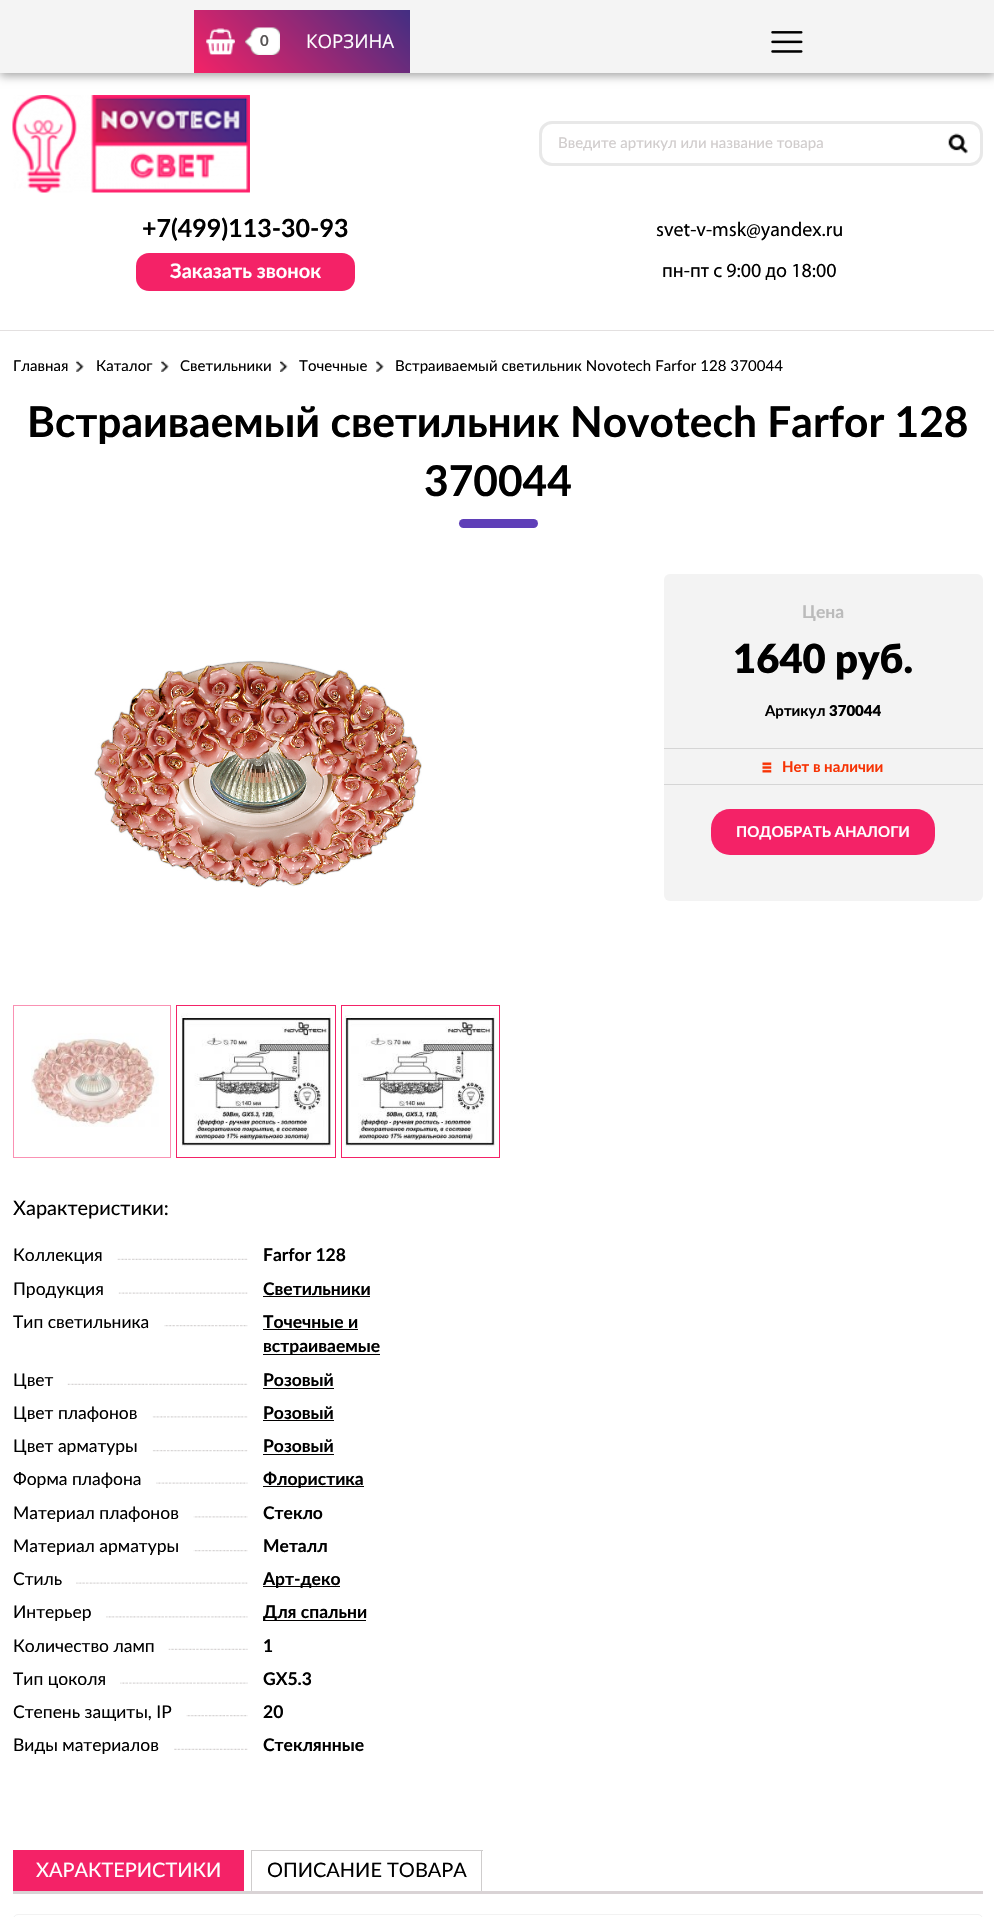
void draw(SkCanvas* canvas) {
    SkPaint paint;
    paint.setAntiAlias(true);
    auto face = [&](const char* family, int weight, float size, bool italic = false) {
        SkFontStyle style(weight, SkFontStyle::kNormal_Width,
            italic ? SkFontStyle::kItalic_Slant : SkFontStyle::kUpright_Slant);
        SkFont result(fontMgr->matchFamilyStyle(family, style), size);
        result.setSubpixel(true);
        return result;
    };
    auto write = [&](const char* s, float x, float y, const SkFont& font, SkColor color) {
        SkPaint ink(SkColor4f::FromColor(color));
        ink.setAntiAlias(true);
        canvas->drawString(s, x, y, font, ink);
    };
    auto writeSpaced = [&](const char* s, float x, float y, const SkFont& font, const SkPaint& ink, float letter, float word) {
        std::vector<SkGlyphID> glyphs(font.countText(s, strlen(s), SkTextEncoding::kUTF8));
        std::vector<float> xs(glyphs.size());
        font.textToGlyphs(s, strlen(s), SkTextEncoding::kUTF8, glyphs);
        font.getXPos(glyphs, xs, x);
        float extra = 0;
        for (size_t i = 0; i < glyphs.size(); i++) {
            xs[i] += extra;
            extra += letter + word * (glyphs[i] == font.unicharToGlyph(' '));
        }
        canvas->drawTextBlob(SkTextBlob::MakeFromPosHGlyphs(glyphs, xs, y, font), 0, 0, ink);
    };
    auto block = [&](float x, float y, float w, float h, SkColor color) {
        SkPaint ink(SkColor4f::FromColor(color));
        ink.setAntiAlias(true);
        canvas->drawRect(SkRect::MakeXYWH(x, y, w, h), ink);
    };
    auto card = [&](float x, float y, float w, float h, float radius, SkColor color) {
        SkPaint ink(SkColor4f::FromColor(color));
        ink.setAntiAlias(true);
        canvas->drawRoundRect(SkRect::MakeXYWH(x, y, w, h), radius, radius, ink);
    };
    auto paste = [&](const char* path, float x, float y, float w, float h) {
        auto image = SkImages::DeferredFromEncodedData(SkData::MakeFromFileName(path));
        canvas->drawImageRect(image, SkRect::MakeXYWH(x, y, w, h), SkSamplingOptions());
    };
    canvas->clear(SK_ColorWHITE);
    paint.setColor(SkColorSetARGB(89, 0, 0, 0));
    paint.setMaskFilter(SkMaskFilter::MakeBlur(kNormal_SkBlurStyle, 4.5f));
    canvas->drawRect(SkRect::MakeXYWH(0, 4, 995, 72), paint);
    paint.setMaskFilter(nullptr);
    block(0, 0, 994, 73, SkColorSetRGB(244, 244, 244));
    {
        const SkColor colors[] = {SkColorSetRGB(244, 34, 103), SkColorSetRGB(68, 46, 130), SkColorSetRGB(68, 46, 130)};
        const float stops[] = {0, 0.99f, 1};
        const SkPoint ends[] = {{232, 111}, {372, -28}};
        paint.setShader(SkGradientShader::MakeLinear(ends, colors, stops, 3, SkTileMode::kClamp));
        paint.setAlpha(255);
    }
    canvas->drawRect(SkRect::MakeXYWH(194, 10, 216, 63), paint);
    paste("pic1.png", 206, 28, 29, 27);
    paste("pic2.png", 245, 27, 35, 28);
    auto kFont1 = face("Lato", 700, 15);
    write("0", 260, 46, kFont1, SkColorSetRGB(88, 85, 85));
    auto kFont2 = face("Open Sans", 400, 18.75f);
    write("КОРЗИНА", 306, 48, kFont2, SK_ColorWHITE);
    paste("pic3.png", 771, 31, 32, 22);
    paste("pic4.png", 12, 95, 238, 98);
    paint.setStyle(SkPaint::kStroke_Style);
    paint.setStrokeWidth(3);
    paint.setShader(nullptr);
    paint.setColor(SkColorSetRGB(232, 232, 232));
    canvas->drawRoundRect(SkRect::MakeXYWH(540.5f, 122.5f, 441, 42), 11.5f, 11.5f, paint);
    auto kFont3 = face("Lato", 400, 15);
    write("Введите артикул или название товара", 558, 148, kFont3, SkColorSetRGB(208, 204, 204));
    paste("pic5.png", 948, 133, 20, 21);
    auto kFont4 = face("Lato", 700, 25);
    write("+7(499)113-30-93", 142, 237, kFont4, SK_ColorBLACK);
    card(136, 253, 219, 38, 13, SkColorSetRGB(244, 34, 103));
    auto kFont5 = face("Lato", 700, 20);
    write("Заказать звонок", 170, 278, kFont5, SK_ColorWHITE);
    auto kFont6 = face("Myriad", 400, 20);
    write("svet-v-msk@yandex.ru", 656, 236, kFont6, SK_ColorBLACK);
    write("пн-пт с 9:00 до 18:00", 662, 277, kFont6, SK_ColorBLACK);
    block(0, 330, 994, 1, SkColorSetRGB(227, 224, 224));
    paint.setStyle(SkPaint::kFill_Style);
    paint.setColor(SK_ColorBLACK);
    writeSpaced("Главная", 13, 371, kFont3, paint, 0.07f, 0);
    paste("pic6.png", 76, 360, 8, 12);
    writeSpaced("Каталог", 96, 371, kFont3, paint, 0.07f, 0);
    paste("pic6.png", 161, 360, 8, 12);
    writeSpaced("Светильники", 180, 371, kFont3, paint, 0.07f, 0);
    paste("pic7.png", 280, 360, 8, 12);
    writeSpaced("Точечные", 299, 371, kFont3, paint, 0.07f, 0);
    paste("pic6.png", 376, 360, 8, 12);
    writeSpaced("Встраиваемый светильник Novotech Farfor 128 370044", 395, 371, kFont3, paint, 0.07f, 0);
    auto kFont7 = face("Lato", 700, 42.5f);
    write("Встраиваемый светильник Novotech Farfor 128", 27, 437, kFont7, SK_ColorBLACK);
    write("370044", 424, 496, kFont7, SK_ColorBLACK);
    card(459, 519, 79, 9, 4.5f, SkColorSetRGB(95, 63, 184));
    paste("pic8.png", 94, 660, 328, 228);
    paint.setStyle(SkPaint::kStroke_Style);
    paint.setStrokeWidth(1);
    paint.setColor(SkColorSetRGB(250, 145, 179));
    canvas->drawRect(SkRect::MakeXYWH(13.5f, 1005.5f, 157, 152), paint);
    paste("pic9.png", 31, 1033, 128, 94);
    paint.setColor(SkColorSetRGB(244, 34, 103));
    canvas->drawRect(SkRect::MakeXYWH(176.5f, 1005.5f, 159, 152), paint);
    paste("pic10.png", 181, 1013, 151, 134);
    canvas->drawRect(SkRect::MakeXYWH(341.5f, 1005.5f, 158, 152), paint);
    paste("pic11.png", 345, 1015, 150, 132);
    card(664, 574, 319, 327, 6, SkColorSetRGB(243, 243, 243));
    auto kFont8 = face("Lato", 700, 17.5f);
    write("Цена", 802, 618, kFont8, SkColorSetRGB(187, 187, 187));
    auto kFont9 = face("Lato", 900, 40);
    write("1640 руб.", 733, 673, kFont9, SK_ColorBLACK);
    write("Артикул", 765, 716, kFont1, SK_ColorBLACK);
    auto kFont10 = face("Lato", 900, 15);
    write("370044", 829, 716, kFont10, SK_ColorBLACK);
    block(664, 748, 319, 1, SkColorSetRGB(213, 213, 213));
    paste("pic12.png", 762, 762, 10, 11);
    write("Нет в наличии", 782, 772, kFont1, SkColorSetRGB(247, 51, 4));
    block(664, 784, 319, 1, SkColorSetRGB(213, 213, 213));
    card(711, 809, 224, 46, 19, SkColorSetRGB(244, 34, 103));
    write("ПОДОБРАТЬ АНАЛОГИ", 736, 837, kFont1, SK_ColorWHITE);
    auto kFont11 = face("Lato", 400, 20);
    write("Характеристики:", 13, 1215, kFont11, SK_ColorBLACK);
    auto kFont12 = face("Lato", 400, 17.5f);
    write("Коллекция", 13, 1261, kFont12, SK_ColorBLACK);
    paste("pic13.png", 117, 1258, 131, 2);
    write("Farfor 128", 263, 1261, kFont8, SK_ColorBLACK);
    write("Продукция", 13, 1295, kFont12, SK_ColorBLACK);
    paste("pic14.png", 118, 1292, 130, 2);
    write("Светильники", 263, 1295, kFont8, SK_ColorBLACK);
    block(263, 1296, 107, 1, SkColorSetRGB(1, 0, 0));
    write("Тип светильника", 13, 1328, kFont12, SK_ColorBLACK);
    paste("pic15.png", 164, 1325, 84, 2);
    write("Точечные и", 263, 1328, kFont8, SK_ColorBLACK);
    block(263, 1329, 95, 1, SkColorSetRGB(1, 0, 0));
    block(263, 1354, 117, 1, SkColorSetRGB(1, 0, 0));
    write("встраиваемые", 263, 1352, kFont8, SK_ColorBLACK);
    write("Цвет", 13, 1386, kFont12, SK_ColorBLACK);
    paste("pic16.png", 67, 1383, 181, 2);
    write("Розовый", 263, 1386, kFont8, SK_ColorBLACK);
    block(263, 1388, 71, 1, SkColorSetRGB(1, 0, 0));
    write("Цвет плафонов", 13, 1419, kFont12, SK_ColorBLACK);
    paste("pic17.png", 152, 1416, 96, 2);
    write("Розовый", 263, 1419, kFont8, SK_ColorBLACK);
    block(263, 1420, 71, 1, SkColorSetRGB(1, 0, 0));
    write("Цвет арматуры", 13, 1452, kFont12, SK_ColorBLACK);
    paste("pic18.png", 152, 1450, 96, 2);
    write("Розовый", 263, 1452, kFont8, SK_ColorBLACK);
    block(263, 1454, 71, 1, SkColorSetRGB(1, 0, 0));
    write("Форма плафона", 13, 1485, kFont12, SK_ColorBLACK);
    paste("pic19.png", 156, 1482, 92, 2);
    block(263, 1486, 101, 1, SkColorSetRGB(1, 0, 0));
    write("Флористика", 263, 1485, kFont8, SK_ColorBLACK);
    write("Материал плафонов", 13, 1519, kFont12, SK_ColorBLACK);
    paste("pic20.png", 193, 1516, 55, 2);
    write("Стекло", 263, 1519, kFont8, SK_ColorBLACK);
    write("Материал арматуры", 13, 1552, kFont12, SK_ColorBLACK);
    paste("pic21.png", 193, 1550, 55, 2);
    write("Металл", 263, 1552, kFont8, SK_ColorBLACK);
    write("Стиль", 13, 1585, kFont12, SK_ColorBLACK);
    paste("pic22.png", 76, 1582, 172, 2);
    block(263, 1586, 77, 1, SkColorSetRGB(1, 0, 0));
    write("Арт-деко", 263, 1585, kFont8, SK_ColorBLACK);
    write("Интерьер", 13, 1618, kFont12, SK_ColorBLACK);
    paste("pic23.png", 106, 1616, 142, 2);
    block(263, 1620, 103, 1, SkColorSetRGB(1, 0, 0));
    write("Для спальни", 263, 1618, kFont8, SK_ColorBLACK);
    write("Количество ламп", 13, 1652, kFont12, SK_ColorBLACK);
    paste("pic24.png", 168, 1648, 80, 2);
    write("1", 263, 1652, kFont8, SK_ColorBLACK);
    write("Тип цоколя", 13, 1685, kFont12, SK_ColorBLACK);
    paste("pic25.png", 120, 1682, 128, 2);
    write("GX5.3", 263, 1685, kFont8, SK_ColorBLACK);
    write("Степень защиты, IP", 13, 1718, kFont12, SK_ColorBLACK);
    paste("pic26.png", 186, 1715, 62, 2);
    write("20", 263, 1718, kFont8, SK_ColorBLACK);
    write("Виды материалов", 13, 1751, kFont12, SK_ColorBLACK);
    paste("pic27.png", 174, 1748, 74, 2);
    write("Стеклянные", 263, 1751, kFont8, SK_ColorBLACK);
    block(13, 1891, 970, 3, SkColorSetRGB(217, 211, 213));
    block(13, 1850, 231, 41, SkColorSetRGB(244, 34, 103));
    write("ХАРАКТЕРИСТИКИ", 36, 1877, kFont11, SK_ColorWHITE);
    block(251, 1850, 232, 1, SkColorSetRGB(207, 205, 205));
    block(481, 1850, 1, 41, SkColorSetRGB(207, 205, 205));
    block(251, 1850, 1, 41, SkColorSetRGB(207, 205, 205));
    write("ОПИСАНИЕ ТОВАРА", 267, 1877, kFont11, SK_ColorBLACK);
    paint.setColor(SkColorSetRGB(242, 242, 242));
    canvas->drawRoundRect(SkRect::MakeXYWH(13.5f, 1914.5f, 969, 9), 5.5f, 5.5f, paint);
}
